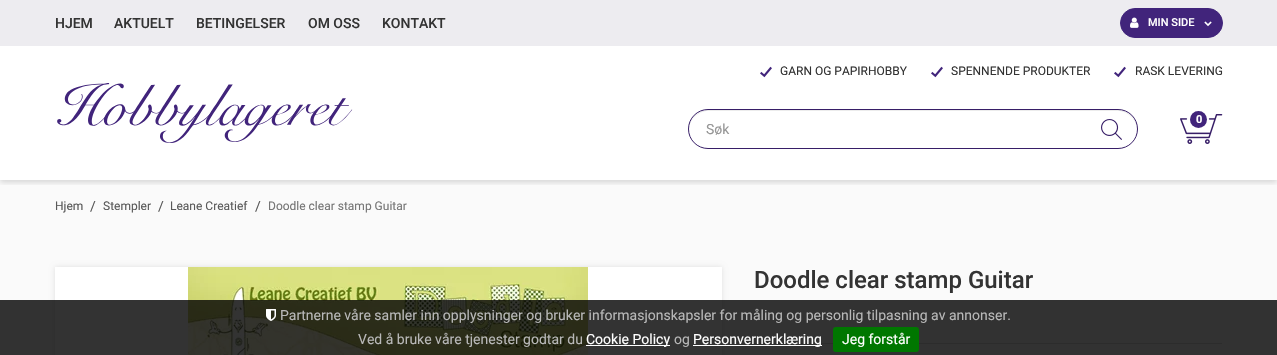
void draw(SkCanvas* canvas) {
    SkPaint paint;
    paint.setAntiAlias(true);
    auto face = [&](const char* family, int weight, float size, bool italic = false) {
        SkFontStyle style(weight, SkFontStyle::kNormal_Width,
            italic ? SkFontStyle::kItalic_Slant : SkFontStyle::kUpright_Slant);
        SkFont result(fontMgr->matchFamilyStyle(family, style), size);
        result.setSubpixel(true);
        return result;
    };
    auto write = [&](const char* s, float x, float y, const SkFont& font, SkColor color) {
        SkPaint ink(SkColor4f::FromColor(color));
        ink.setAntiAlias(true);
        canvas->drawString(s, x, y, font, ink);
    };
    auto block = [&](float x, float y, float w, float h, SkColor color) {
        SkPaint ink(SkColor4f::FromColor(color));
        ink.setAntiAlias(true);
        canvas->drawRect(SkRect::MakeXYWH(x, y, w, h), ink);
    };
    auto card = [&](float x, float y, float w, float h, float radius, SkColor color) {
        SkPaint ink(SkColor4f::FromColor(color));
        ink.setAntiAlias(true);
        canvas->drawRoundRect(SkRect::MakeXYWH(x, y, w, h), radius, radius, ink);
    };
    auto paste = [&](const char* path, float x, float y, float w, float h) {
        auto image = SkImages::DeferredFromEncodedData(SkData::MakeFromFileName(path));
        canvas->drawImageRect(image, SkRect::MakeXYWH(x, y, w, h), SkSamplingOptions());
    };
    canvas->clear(SkColorSetRGB(250, 250, 250));
    block(0, 46, 1277, 134, SK_ColorWHITE);
    canvas->save();
    canvas->clipRect(SkRect::MakeXYWH(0, 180, 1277, 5));
    paint.setColor(SkColorSetARGB(41, 0, 0, 0));
    paint.setMaskFilter(SkMaskFilter::MakeBlur(kNormal_SkBlurStyle, 3));
    canvas->drawRect(SkRect::MakeXYWH(0, 2, 1277, 180), paint);
    paint.setMaskFilter(nullptr);
    canvas->restore();
    block(0, 0, 1277, 46, SkColorSetRGB(237, 236, 240));
    auto kFont1 = face("Roboto", 500, 14);
    write("HJEM", 55, 28, kFont1, SkColorSetRGB(51, 51, 51));
    write("AKTUELT", 114, 28, kFont1, SkColorSetRGB(51, 51, 51));
    write("BETINGELSER", 196, 28, kFont1, SkColorSetRGB(51, 51, 51));
    write("OM OSS", 308, 28, kFont1, SkColorSetRGB(51, 51, 51));
    write("KONTAKT", 382, 28, kFont1, SkColorSetRGB(51, 51, 51));
    paint.setColor(SkColorSetRGB(65, 36, 123));
    canvas->drawRoundRect(SkRect::MakeXYWH(1120.5f, 8.5f, 102, 29), 14.5f, 14.5f, paint);
    paint.setStyle(SkPaint::kStroke_Style);
    paint.setStrokeWidth(1);
    canvas->drawRoundRect(SkRect::MakeXYWH(1120.5f, 8.5f, 102, 29), 14.5f, 14.5f, paint);
    paste("pic1.png", 1130, 17, 9, 11);
    auto kFont2 = face("Roboto", 500, 11);
    write("MIN SIDE", 1148, 26, kFont2, SK_ColorWHITE);
    paste("pic2.png", 1204, 21, 8, 6);
    paste("pic3.png", 57, 83, 296, 60);
    paste("pic4.png", 760, 66, 12, 12);
    auto kFont3 = face("Roboto", 400, 12);
    write("GARN OG PAPIRHOBBY", 780, 75, kFont3, SkColorSetRGB(51, 51, 51));
    paste("pic4.png", 931, 66, 12, 12);
    write("SPENNENDE PRODUKTER", 951, 75, kFont3, SkColorSetRGB(51, 51, 51));
    paste("pic4.png", 1114, 66, 12, 12);
    write("RASK LEVERING", 1135, 75, kFont3, SkColorSetRGB(51, 51, 51));
    paste("pic5.png", 1180, 114, 43, 30);
    paint.setStyle(SkPaint::kFill_Style);
    canvas->drawCircle(1198.5f, 119.5f, 8.5f, paint);
    auto kFont4 = face("Roboto", 700, 11);
    write("0", 1196, 123, kFont4, SK_ColorWHITE);
    paint.setColor(SkColorSetRGB(236, 236, 236));
    canvas->drawPath(SkPathBuilder().moveTo(708, 111).lineTo(1118, 111).cubicTo(1128, 111, 1137, 120, 1137, 130).cubicTo(1137, 119, 1129, 110, 1118, 110).lineTo(708, 110).cubicTo(697, 110, 689, 119, 689, 130).cubicTo(689, 120, 698, 111, 708, 111).close().detach(), paint);
    paint.setStyle(SkPaint::kStroke_Style);
    paint.setColor(SkColorSetRGB(55, 30, 103));
    canvas->drawRoundRect(SkRect::MakeXYWH(688.5f, 109.5f, 449, 39), 19.5f, 19.5f, paint);
    auto kFont5 = face("Roboto", 400, 14);
    write("Søk", 706, 134, kFont5, SkColorSetRGB(150, 150, 150));
    paste("pic6.png", 1101, 119, 21, 21);
    write("Hjem", 55, 210, kFont3, SkColorSetRGB(89, 89, 89));
    write("/", 90, 211, kFont5, SkColorSetRGB(89, 89, 89));
    write("Stempler", 103, 210, kFont3, SkColorSetRGB(89, 89, 89));
    write("/", 158, 211, kFont5, SkColorSetRGB(89, 89, 89));
    write("Leane Creatief", 170, 210, kFont3, SkColorSetRGB(89, 89, 89));
    write("/", 255, 211, kFont5, SkColorSetRGB(89, 89, 89));
    write("Doodle clear stamp Guitar", 268, 210, kFont3, SkColorSetRGB(117, 117, 117));
    paint.setStyle(SkPaint::kFill_Style);
    paint.setColor(SkColorSetARGB(26, 0, 0, 0));
    paint.setMaskFilter(SkMaskFilter::MakeBlur(kNormal_SkBlurStyle, 2.5f));
    canvas->drawRect(SkRect::MakeXYWH(55, 267, 667, 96), paint);
    paint.setMaskFilter(nullptr);
    block(55, 267, 667, 88, SK_ColorWHITE);
    paste("pic7.png", 188, 267, 400, 88);
    auto kFont6 = face("Roboto", 500, 24);
    write("Doodle clear stamp Guitar", 754, 288, kFont6, SkColorSetRGB(51, 51, 51));
    block(754, 343, 468, 1, SkColorSetRGB(219, 219, 219));
    block(0, 300, 1277, 55, SkColorSetARGB(204, 0, 0, 0));
    paste("pic8.png", 266, 309, 10, 12);
    write("Partnerne våre samler inn opplysninger og bruker informasjonskapsler for måling og personlig tilpasning av annonser.", 280, 320, kFont5, SkColorSetRGB(184, 184, 184));
    write("Ved å bruke våre tjenester godtar du", 358, 344, kFont5, SkColorSetRGB(184, 184, 184));
    block(586, 345, 84, 1, SK_ColorWHITE);
    write("Cookie Policy", 586, 344, kFont5, SK_ColorWHITE);
    write("og", 674, 344, kFont5, SkColorSetRGB(184, 184, 184));
    block(693, 345, 129, 1, SK_ColorWHITE);
    write("Personvernerklæring", 693, 344, kFont5, SK_ColorWHITE);
    card(833, 327, 86, 25, 3, SkColorSetRGB(0, 119, 0));
    write("Jeg forstår", 842, 344, kFont5, SK_ColorWHITE);
}
